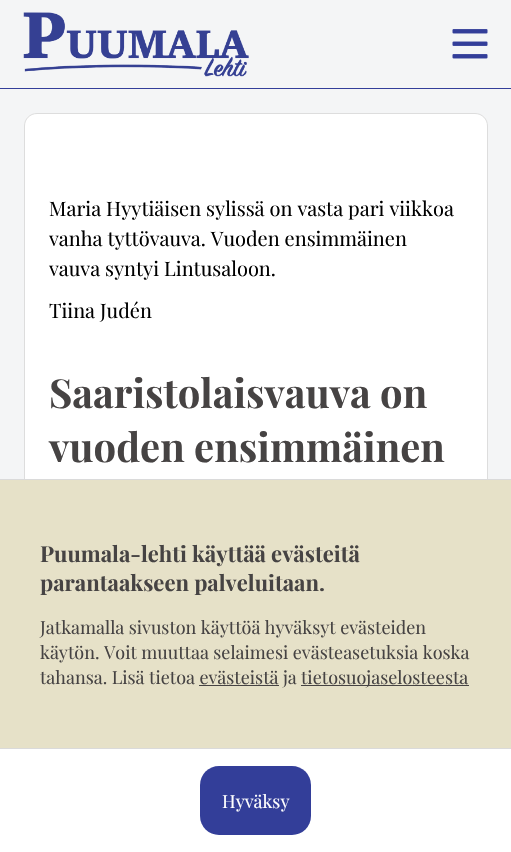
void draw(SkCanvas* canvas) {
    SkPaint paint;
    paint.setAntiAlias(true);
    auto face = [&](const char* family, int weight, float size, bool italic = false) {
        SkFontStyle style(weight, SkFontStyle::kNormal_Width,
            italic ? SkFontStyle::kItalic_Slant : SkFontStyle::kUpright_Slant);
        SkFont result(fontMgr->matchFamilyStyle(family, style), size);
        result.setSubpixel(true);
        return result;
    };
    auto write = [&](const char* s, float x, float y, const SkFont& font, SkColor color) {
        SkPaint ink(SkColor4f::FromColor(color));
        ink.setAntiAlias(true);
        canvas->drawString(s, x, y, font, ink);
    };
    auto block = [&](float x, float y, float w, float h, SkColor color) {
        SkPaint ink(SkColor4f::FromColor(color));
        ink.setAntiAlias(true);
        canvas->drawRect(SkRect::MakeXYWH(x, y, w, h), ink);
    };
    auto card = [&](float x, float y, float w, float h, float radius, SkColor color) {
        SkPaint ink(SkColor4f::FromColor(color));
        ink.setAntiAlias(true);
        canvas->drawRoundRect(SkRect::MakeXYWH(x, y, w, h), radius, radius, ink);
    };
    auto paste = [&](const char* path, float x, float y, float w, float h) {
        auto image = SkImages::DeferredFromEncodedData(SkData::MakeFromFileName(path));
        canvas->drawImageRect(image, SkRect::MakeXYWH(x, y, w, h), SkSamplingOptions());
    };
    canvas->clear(SkColorSetRGB(244, 245, 246));
    paste("pic1.png", 23, 12, 226, 65);
    paste("pic2.png", 452, 29, 36, 30);
    block(0, 88, 511, 1, SkColorSetRGB(51, 62, 153));
    paint.setColor(SK_ColorWHITE);
    canvas->drawPath(SkPathBuilder().moveTo(37, 113.5f).lineTo(475, 113.5f).cubicTo(482, 113.5f, 487.5f, 119, 487.5f, 126).lineTo(487.5f, 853).cubicTo(487.5f, 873.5f, 470.5f, 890.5f, 450, 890.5f).lineTo(37, 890.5f).cubicTo(30, 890.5f, 24.5f, 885, 24.5f, 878).lineTo(24.5f, 126).cubicTo(24.5f, 119, 30, 113.5f, 37, 113.5f).close().detach(), paint);
    paint.setStyle(SkPaint::kStroke_Style);
    paint.setStrokeWidth(1);
    paint.setColor(SkColorSetRGB(221, 221, 221));
    canvas->drawPath(SkPathBuilder().moveTo(37, 113.5f).lineTo(475, 113.5f).cubicTo(482, 113.5f, 487.5f, 119, 487.5f, 126).lineTo(487.5f, 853).cubicTo(487.5f, 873.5f, 470.5f, 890.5f, 450, 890.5f).lineTo(37, 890.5f).cubicTo(30, 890.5f, 24.5f, 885, 24.5f, 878).lineTo(24.5f, 126).cubicTo(24.5f, 119, 30, 113.5f, 37, 113.5f).close().detach(), paint);
    auto kFont1 = face("Playfair Display", 400, 20);
    write("Maria Hyytiäisen sylissä on vasta pari viikkoa", 49, 216, kFont1, SK_ColorBLACK);
    write("vanha tyttövauva. Vuoden ensimmäinen", 49, 246, kFont1, SK_ColorBLACK);
    write("vauva syntyi Lintusaloon.", 49, 276, kFont1, SK_ColorBLACK);
    write("Tiina Judén", 49, 318, kFont1, SK_ColorBLACK);
    auto kFont2 = face("Playfair Display", 700, 40);
    write("Saaristolaisvauva on", 49, 408, kFont2, SkColorSetRGB(70, 67, 67));
    write("vuoden ensimmäinen", 49, 462, kFont2, SkColorSetRGB(70, 67, 67));
    block(0, 480, 511, 268, SkColorSetRGB(230, 225, 200));
    block(0, 479, 511, 1, SkColorSetRGB(218, 218, 218));
    auto kFont3 = face("Playfair Display", 700, 22);
    write("Puumala-lehti käyttää evästeitä", 40, 562, kFont3, SkColorSetRGB(70, 67, 67));
    write("parantaakseen palveluitaan.", 40, 591, kFont3, SkColorSetRGB(70, 67, 67));
    auto kFont4 = face("Playfair Display", 400, 18);
    write("Jatkamalla sivuston käyttöä hyväksyt evästeiden", 40, 634, kFont4, SkColorSetRGB(70, 67, 67));
    write("käytön. Voit muuttaa selaimesi evästeasetuksia koska", 40, 659, kFont4, SkColorSetRGB(70, 67, 67));
    write("tahansa. Lisä tietoa evästeistä ja", 40, 684, kFont4, SkColorSetRGB(70, 67, 67));
    block(301, 685, 168, 1, SkColorSetRGB(70, 67, 67));
    write("tietosuojaselosteesta", 301, 684, kFont4, SkColorSetRGB(70, 67, 67));
    block(199, 685, 80, 1, SkColorSetRGB(70, 67, 67));
    block(0, 749, 511, 103, SK_ColorWHITE);
    block(0, 748, 511, 1, SkColorSetRGB(218, 218, 218));
    card(200, 766, 111, 69, 19, SkColorSetRGB(51, 62, 153));
    write("Hyväksy", 222, 808, kFont4, SK_ColorWHITE);
}
